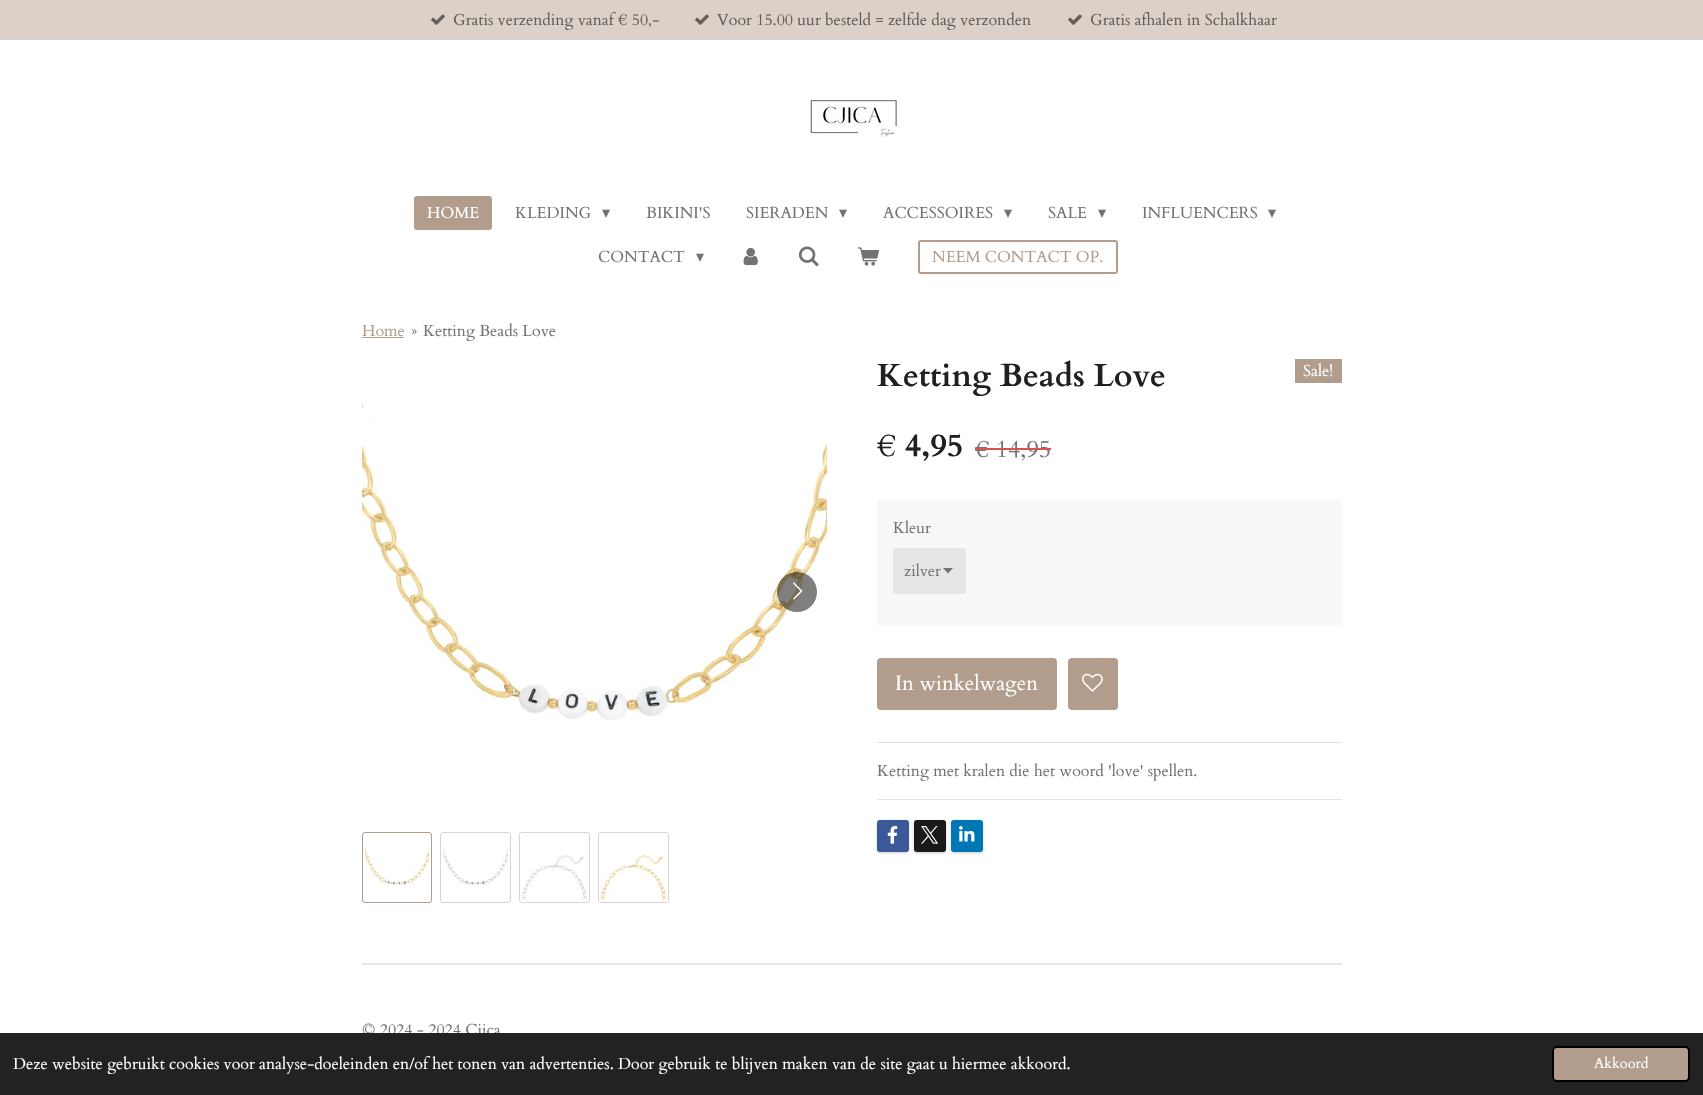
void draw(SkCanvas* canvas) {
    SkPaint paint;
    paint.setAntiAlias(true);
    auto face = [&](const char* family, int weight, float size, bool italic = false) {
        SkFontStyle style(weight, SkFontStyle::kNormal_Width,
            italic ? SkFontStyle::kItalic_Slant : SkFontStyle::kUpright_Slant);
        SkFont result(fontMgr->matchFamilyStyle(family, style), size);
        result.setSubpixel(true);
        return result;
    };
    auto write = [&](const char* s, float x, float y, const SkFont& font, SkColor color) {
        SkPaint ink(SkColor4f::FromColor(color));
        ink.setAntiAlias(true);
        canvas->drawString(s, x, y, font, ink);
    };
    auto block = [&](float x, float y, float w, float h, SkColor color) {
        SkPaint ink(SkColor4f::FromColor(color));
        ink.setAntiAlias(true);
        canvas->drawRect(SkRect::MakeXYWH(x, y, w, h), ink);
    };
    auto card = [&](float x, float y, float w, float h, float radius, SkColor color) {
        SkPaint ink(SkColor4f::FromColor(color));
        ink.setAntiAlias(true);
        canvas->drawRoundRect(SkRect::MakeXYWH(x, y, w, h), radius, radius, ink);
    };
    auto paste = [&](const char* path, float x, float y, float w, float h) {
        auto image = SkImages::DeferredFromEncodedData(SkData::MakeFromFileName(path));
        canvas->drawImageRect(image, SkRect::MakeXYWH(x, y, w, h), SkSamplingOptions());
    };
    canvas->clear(SK_ColorWHITE);
    block(0, 0, 1703, 40, SkColorSetRGB(219, 209, 201));
    paste("pic1.png", 431, 14, 14, 11);
    auto kFont1 = face("Cardo", 400, 16);
    write("Gratis verzending vanaf € 50,-", 453, 25, kFont1, SkColorSetRGB(99, 94, 90));
    paste("pic1.png", 695, 14, 14, 11);
    write("Voor 15.00 uur besteld = zelfde dag verzonden", 717, 25, kFont1, SkColorSetRGB(99, 94, 90));
    paste("pic1.png", 1068, 14, 14, 11);
    write("Gratis afhalen in Schalkhaar", 1090, 25, kFont1, SkColorSetRGB(99, 94, 90));
    paste("pic2.png", 810, 98, 87, 40);
    card(414, 196, 78, 34, 3, SkColorSetRGB(178, 157, 140));
    write("HOME", 427, 218, kFont1, SK_ColorWHITE);
    write("KLEDING", 515, 218, kFont1, SkColorSetRGB(115, 115, 115));
    auto kFont2 = face("DejaVu Sans", 400, 16);
    write("▾", 602, 218, kFont2, SkColorSetRGB(115, 115, 115));
    write("BIKINI'S", 646, 218, kFont1, SkColorSetRGB(115, 115, 115));
    write("SIERADEN", 746, 218, kFont1, SkColorSetRGB(115, 115, 115));
    write("▾", 839, 218, kFont2, SkColorSetRGB(115, 115, 115));
    write("ACCESSOIRES", 883, 218, kFont1, SkColorSetRGB(115, 115, 115));
    write("▾", 1004, 218, kFont2, SkColorSetRGB(115, 115, 115));
    write("SALE", 1048, 218, kFont1, SkColorSetRGB(115, 115, 115));
    write("▾", 1098, 218, kFont2, SkColorSetRGB(115, 115, 115));
    write("INFLUENCERS", 1142, 218, kFont1, SkColorSetRGB(115, 115, 115));
    write("▾", 1268, 218, kFont2, SkColorSetRGB(115, 115, 115));
    write("CONTACT", 598, 262, kFont1, SkColorSetRGB(115, 115, 115));
    write("▾", 696, 262, kFont2, SkColorSetRGB(115, 115, 115));
    paste("pic3.png", 743, 247, 15, 19);
    paste("pic4.png", 798, 246, 21, 21);
    paste("pic5.png", 858, 247, 21, 19);
    paint.setStyle(SkPaint::kStroke_Style);
    paint.setStrokeWidth(2);
    paint.setColor(SkColorSetRGB(178, 157, 140));
    canvas->drawRoundRect(SkRect::MakeXYWH(919, 241, 198, 32), 2, 2, paint);
    write("NEEM CONTACT OP.", 932, 262, kFont1, SkColorSetRGB(178, 157, 140));
    write("Home", 362, 336, kFont1, SkColorSetRGB(178, 157, 140));
    block(362, 337, 42, 1, SkColorSetRGB(178, 157, 140));
    write("»", 411, 336, kFont1, SkColorSetRGB(115, 115, 115));
    write("Ketting Beads Love", 423, 336, kFont1, SkColorSetRGB(115, 115, 115));
    auto kFont3 = face("Cardo", 700, 32);
    write("Ketting Beads Love", 877, 386, kFont3, SkColorSetRGB(32, 32, 32));
    block(1295, 359, 47, 24, SkColorSetRGB(178, 157, 140));
    write("Sale!", 1303, 376, kFont1, SK_ColorWHITE);
    paste("pic6.png", 362, 402, 465, 318);
    paint.setStyle(SkPaint::kFill_Style);
    paint.setColor(SkColorSetARGB(128, 0, 0, 0));
    canvas->drawCircle(797, 592, 20, paint);
    paste("pic7.png", 793, 582, 10, 18);
    paint.setStyle(SkPaint::kStroke_Style);
    paint.setStrokeWidth(1);
    paint.setColor(SkColorSetRGB(178, 157, 140));
    canvas->drawRoundRect(SkRect::MakeXYWH(362.5f, 832.5f, 69, 70), 2.5f, 2.5f, paint);
    paste("pic8.png", 365, 846, 64, 41);
    paint.setColor(SkColorSetRGB(213, 213, 213));
    canvas->drawRoundRect(SkRect::MakeXYWH(440.5f, 832.5f, 70, 70), 2.5f, 2.5f, paint);
    paste("pic9.png", 443, 847, 65, 39);
    canvas->drawRoundRect(SkRect::MakeXYWH(519.5f, 832.5f, 70, 70), 2.5f, 2.5f, paint);
    paste("pic10.png", 522, 855, 65, 45);
    canvas->drawRoundRect(SkRect::MakeXYWH(598.5f, 832.5f, 70, 70), 2.5f, 2.5f, paint);
    paste("pic11.png", 601, 854, 65, 46);
    write("€ 4,95", 877, 456, kFont3, SkColorSetRGB(32, 32, 32));
    auto kFont4 = face("Cardo", 400, 24);
    write("€ 14,95", 975, 457, kFont4, SkColorSetRGB(115, 115, 115));
    block(975, 448, 76, 2, SkColorSetRGB(217, 83, 79));
    card(877, 500, 465, 126, 3, SkColorSetRGB(248, 248, 248));
    write("Kleur", 893, 533, kFont1, SkColorSetRGB(115, 115, 115));
    card(893, 548, 73, 46, 2, SkColorSetRGB(230, 230, 230));
    paint.setStyle(SkPaint::kFill_Style);
    paint.setColor(SkColorSetRGB(115, 115, 115));
    canvas->drawPath(SkPathBuilder().moveTo(948, 573.5f).lineTo(943, 568).lineTo(953, 568).close().detach(), paint);
    write("zilver", 904, 576, kFont1, SkColorSetRGB(115, 115, 115));
    card(877, 658, 180, 52, 4, SkColorSetRGB(178, 157, 140));
    auto kFont5 = face("Cardo", 400, 20.75f);
    write("In winkelwagen", 895, 690, kFont5, SK_ColorWHITE);
    card(1068, 658, 50, 52, 4, SkColorSetRGB(178, 157, 140));
    paste("pic12.png", 1082, 673, 21, 19);
    block(877, 742, 465, 1, SkColorSetRGB(227, 227, 227));
    write("Ketting met kralen die het woord 'love' spellen.", 877, 776, kFont1, SkColorSetRGB(115, 115, 115));
    block(877, 799, 465, 1, SkColorSetRGB(227, 227, 227));
    paint.setColor(SkColorSetARGB(51, 0, 0, 0));
    paint.setMaskFilter(SkMaskFilter::MakeBlur(kNormal_SkBlurStyle, 1.5f));
    canvas->drawRoundRect(SkRect::MakeXYWH(877, 821, 32, 32), 3, 3, paint);
    paint.setMaskFilter(nullptr);
    card(877, 820, 32, 32, 3, SkColorSetRGB(59, 89, 152));
    paste("pic13.png", 887, 826, 11, 18);
    paint.setMaskFilter(SkMaskFilter::MakeBlur(kNormal_SkBlurStyle, 1.5f));
    canvas->drawRoundRect(SkRect::MakeXYWH(914, 821, 32, 32), 3, 3, paint);
    paint.setMaskFilter(nullptr);
    card(914, 820, 32, 32, 3, SkColorSetRGB(26, 26, 26));
    paste("pic14.png", 921, 826, 18, 18);
    paint.setMaskFilter(SkMaskFilter::MakeBlur(kNormal_SkBlurStyle, 1.5f));
    canvas->drawRoundRect(SkRect::MakeXYWH(951, 821, 32, 32), 3, 3, paint);
    paint.setMaskFilter(nullptr);
    card(951, 820, 32, 32, 3, SkColorSetRGB(0, 119, 181));
    paste("pic15.png", 959, 826, 16, 16);
    block(362, 963, 980, 2, SkColorSetRGB(230, 230, 230));
    write("© 2024 - 2024 Cjica", 362, 1035, kFont1, SkColorSetRGB(115, 115, 115));
    block(0, 1033, 1703, 62, SkColorSetRGB(34, 34, 34));
    write("Deze website gebruikt cookies voor analyse-doeleinden en/of het tonen van advertenties. Door gebruik te blijven maken van de site gaat u hiermee akkoord.", 13, 1069, kFont1, SK_ColorWHITE);
    paint.setColor(SkColorSetRGB(178, 157, 140));
    canvas->drawRoundRect(SkRect::MakeXYWH(1553, 1047, 136, 34), 4, 4, paint);
    paint.setStyle(SkPaint::kStroke_Style);
    paint.setStrokeWidth(2);
    paint.setColor(SK_ColorBLACK);
    canvas->drawRoundRect(SkRect::MakeXYWH(1553, 1047, 136, 34), 4, 4, paint);
    auto kFont6 = face("Cardo", 400, 14.5f);
    write("Akkoord", 1594, 1068, kFont6, SK_ColorWHITE);
}
